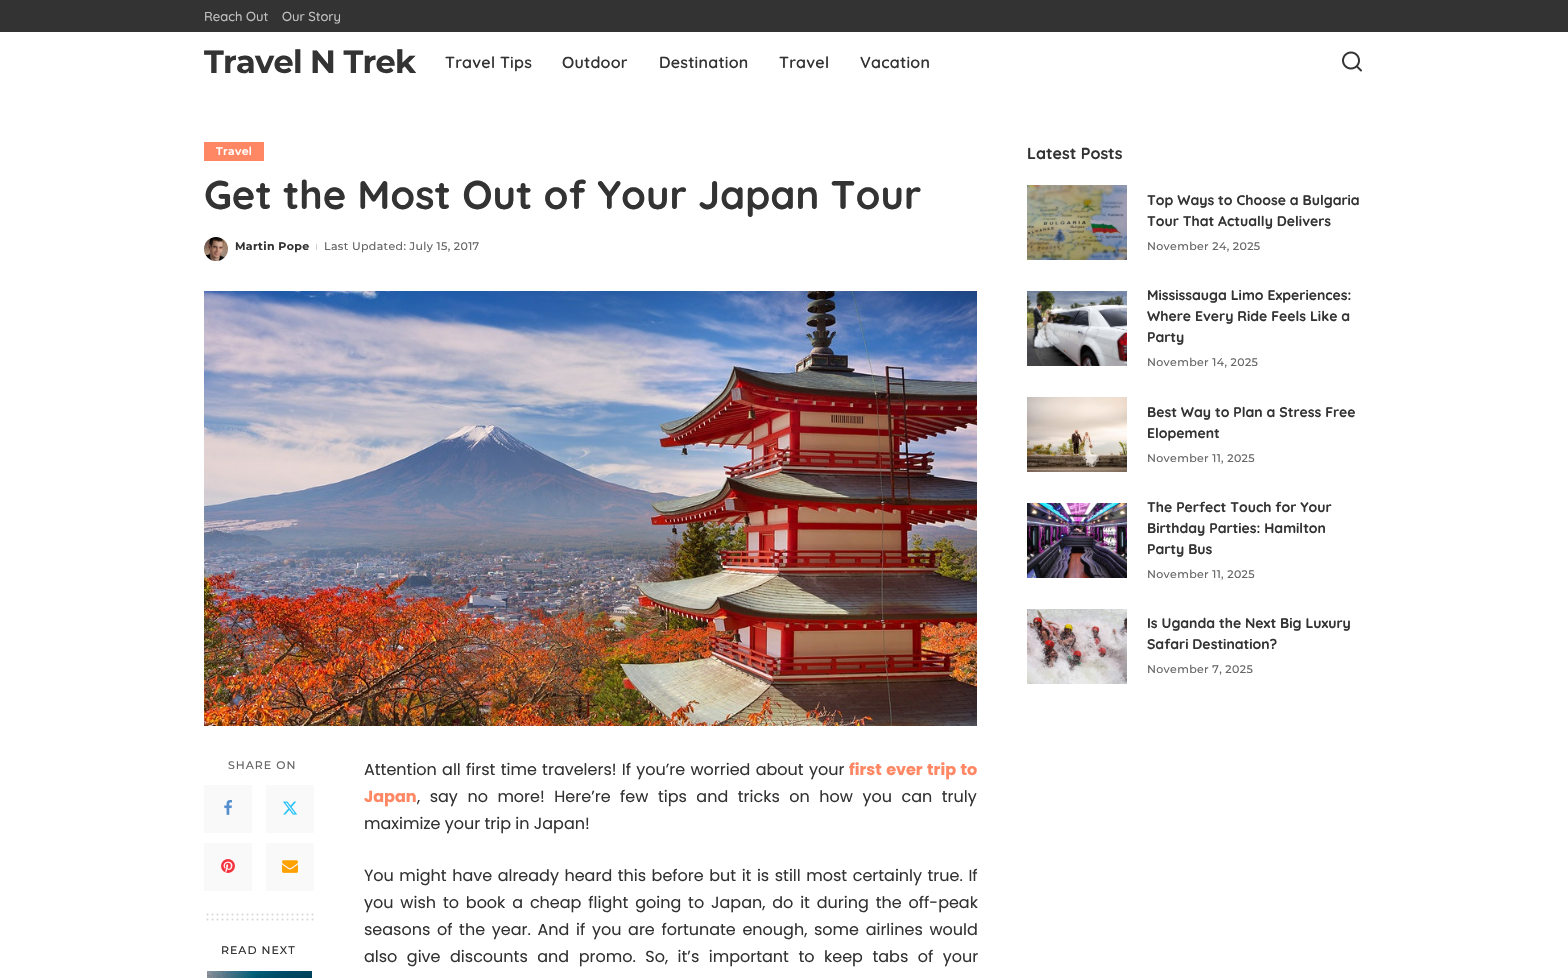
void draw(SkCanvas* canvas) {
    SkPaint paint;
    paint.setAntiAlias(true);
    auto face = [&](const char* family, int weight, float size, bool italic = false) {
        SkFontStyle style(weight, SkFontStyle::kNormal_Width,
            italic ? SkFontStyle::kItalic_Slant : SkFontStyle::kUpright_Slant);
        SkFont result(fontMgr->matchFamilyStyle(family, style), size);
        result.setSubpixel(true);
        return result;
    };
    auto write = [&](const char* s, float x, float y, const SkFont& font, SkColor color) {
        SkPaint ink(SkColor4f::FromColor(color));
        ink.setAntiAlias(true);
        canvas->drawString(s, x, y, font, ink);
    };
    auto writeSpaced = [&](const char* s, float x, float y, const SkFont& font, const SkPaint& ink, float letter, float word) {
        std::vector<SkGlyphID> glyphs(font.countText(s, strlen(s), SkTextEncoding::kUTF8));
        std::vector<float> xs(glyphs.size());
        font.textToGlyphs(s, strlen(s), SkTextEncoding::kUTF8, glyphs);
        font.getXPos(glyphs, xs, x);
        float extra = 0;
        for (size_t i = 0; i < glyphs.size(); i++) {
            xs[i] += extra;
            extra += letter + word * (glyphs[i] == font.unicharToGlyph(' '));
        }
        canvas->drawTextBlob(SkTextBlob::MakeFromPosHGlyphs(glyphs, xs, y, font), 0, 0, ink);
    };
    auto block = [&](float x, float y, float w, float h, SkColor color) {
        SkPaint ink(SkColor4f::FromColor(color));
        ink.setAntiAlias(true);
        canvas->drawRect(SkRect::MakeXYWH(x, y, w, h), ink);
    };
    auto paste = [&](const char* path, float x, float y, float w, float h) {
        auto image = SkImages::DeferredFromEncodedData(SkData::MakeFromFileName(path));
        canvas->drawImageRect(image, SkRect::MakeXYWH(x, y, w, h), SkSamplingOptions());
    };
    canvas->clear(SK_ColorWHITE);
    block(0, 0, 1568, 32, SkColorSetRGB(51, 51, 51));
    auto kFont1 = face("Quicksand", 500, 13);
    write("Reach Out", 204, 21, kFont1, SkColorSetRGB(194, 194, 194));
    write("Our Story", 282, 21, kFont1, SkColorSetRGB(194, 194, 194));
    auto kFont2 = face("Montserrat", 700, 32);
    paint.setColor(SkColorSetRGB(51, 51, 51));
    writeSpaced("Travel N Trek", 204, 73, kFont2, paint, -0.75f, 0);
    auto kFont3 = face("Quicksand", 600, 16);
    writeSpaced("Travel Tips", 445, 68, kFont3, paint, 0.25f, 0);
    writeSpaced("Outdoor", 562, 68, kFont3, paint, 0.25f, 0);
    writeSpaced("Destination", 659, 68, kFont3, paint, 0.25f, 0);
    writeSpaced("Travel", 779, 68, kFont3, paint, 0.25f, 0);
    writeSpaced("Vacation", 860, 68, kFont3, paint, 0.25f, 0);
    paste("pic1.png", 1342, 51, 20, 21);
    block(204, 142, 60, 19, SkColorSetRGB(255, 135, 99));
    auto kFont4 = face("Montserrat", 600, 11);
    paint.setColor(SK_ColorWHITE);
    writeSpaced("Travel", 216, 155, kFont4, paint, 0.35f, 0);
    auto kFont5 = face("Quicksand", 700, 40);
    write("Get the Most Out of Your Japan Tour", 204, 209, kFont5, SkColorSetRGB(51, 51, 51));
    paste("pic2.png", 204, 237, 24, 24);
    auto kFont6 = face("Montserrat", 700, 11);
    paint.setColor(SkColorSetRGB(51, 51, 51));
    writeSpaced("Martin Pope", 235, 250, kFont6, paint, 0.35f, 0);
    block(316, 244, 1, 6, SkColorSetRGB(209, 209, 209));
    auto kFont7 = face("Montserrat", 500, 11);
    paint.setColor(SkColorSetRGB(102, 102, 102));
    writeSpaced("Last Updated: July 15, 2017", 324, 250, kFont7, paint, 0.35f, 0);
    paste("pic3.png", 204, 291, 773, 435);
    writeSpaced("SHARE ON", 228, 769, kFont7, paint, 1, 0);
    block(204, 785, 48, 48, SkColorSetRGB(249, 249, 249));
    paste("pic4.png", 224, 800, 8, 15);
    block(266, 785, 48, 48, SkColorSetRGB(249, 249, 249));
    paste("pic5.png", 283, 801, 15, 14);
    block(204, 843, 48, 48, SkColorSetRGB(249, 249, 249));
    paste("pic6.png", 221, 859, 14, 14);
    block(266, 843, 48, 48, SkColorSetRGB(249, 249, 249));
    paste("pic7.png", 282, 860, 16, 13);
    paint.setStyle(SkPaint::kStroke_Style);
    paint.setStrokeWidth(2);
    paint.setStrokeCap(SkPaint::kRound_Cap);
    paint.setColor(SkColorSetRGB(214, 214, 214));
    paint.setPathEffect(SkDashPathEffect::Make({{0, 5}}, 0));
    canvas->drawPath(SkPathBuilder().moveTo(207.5f, 914.5f).lineTo(312.7f, 914.5f).detach(), paint);
    paint.setPathEffect(nullptr);
    paint.setPathEffect(SkDashPathEffect::Make({{0, 5}}, 0));
    canvas->drawPath(SkPathBuilder().moveTo(207.5f, 919.5f).lineTo(312.7f, 919.5f).detach(), paint);
    paint.setPathEffect(nullptr);
    paint.setStyle(SkPaint::kFill_Style);
    paint.setColor(SkColorSetRGB(51, 51, 51));
    writeSpaced("READ NEXT", 221, 954, kFont7, paint, 1, 0);
    paste("pic8.png", 207, 971, 105, 7);
    auto kFont8 = face("Poppins", 400, 16);
    writeSpaced("Attention all first time travelers! If you’re worried about your", 364, 775, kFont8, paint, 0, 1);
    auto kFont9 = face("Poppins", 700, 16);
    paint.setColor(SkColorSetRGB(255, 135, 99));
    writeSpaced("first ever trip to", 849, 775, kFont9, paint, 0, 1);
    write("Japan", 364, 802, kFont9, SkColorSetRGB(255, 135, 99));
    paint.setColor(SkColorSetRGB(51, 51, 51));
    writeSpaced(", say no more! Here’re few tips and tricks on how you can truly", 417, 802, kFont8, paint, 0, 5.25f);
    write("maximize your trip in Japan!", 364, 829, kFont8, SkColorSetRGB(51, 51, 51));
    writeSpaced("You might have already heard this before but it is still most certainly true. If", 364, 881, kFont8, paint, 0, 1.25f);
    writeSpaced("you wish to book a cheap flight going to Japan, do it during the off-peak", 364, 908, kFont8, paint, 0, 2.6f);
    writeSpaced("seasons of the year. And if you are fortunate enough, some airlines would", 364, 935, kFont8, paint, 0, 2.4f);
    writeSpaced("also give discounts and promo. So, it’s important to keep tabs of your", 364, 962, kFont8, paint, 0, 5.25f);
    auto kFont10 = face("Quicksand", 700, 16);
    write("Latest Posts", 1027, 159, kFont10, SkColorSetRGB(51, 51, 51));
    paste("pic9.png", 1027, 185, 100, 75);
    auto kFont11 = face("Quicksand", 700, 14);
    write("Top Ways to Choose a Bulgaria", 1147, 205, kFont11, SkColorSetRGB(51, 51, 51));
    write("Tour That Actually Delivers", 1147, 226, kFont11, SkColorSetRGB(51, 51, 51));
    paint.setColor(SkColorSetRGB(102, 102, 102));
    writeSpaced("November 24, 2025", 1147, 250, kFont7, paint, 0.35f, 0);
    paste("pic10.png", 1027, 291, 100, 75);
    write("Mississauga Limo Experiences:", 1147, 300, kFont11, SkColorSetRGB(51, 51, 51));
    write("Where Every Ride Feels Like a", 1147, 321, kFont11, SkColorSetRGB(51, 51, 51));
    write("Party", 1147, 342, kFont11, SkColorSetRGB(51, 51, 51));
    writeSpaced("November 14, 2025", 1147, 366, kFont7, paint, 0.35f, 0);
    paste("pic11.png", 1027, 397, 100, 75);
    write("Best Way to Plan a Stress Free", 1147, 417, kFont11, SkColorSetRGB(51, 51, 51));
    write("Elopement", 1147, 438, kFont11, SkColorSetRGB(51, 51, 51));
    writeSpaced("November 11, 2025", 1147, 462, kFont7, paint, 0.35f, 0);
    paste("pic12.png", 1027, 503, 100, 75);
    write("The Perfect Touch for Your", 1147, 512, kFont11, SkColorSetRGB(51, 51, 51));
    write("Birthday Parties: Hamilton", 1147, 533, kFont11, SkColorSetRGB(51, 51, 51));
    write("Party Bus", 1147, 554, kFont11, SkColorSetRGB(51, 51, 51));
    writeSpaced("November 11, 2025", 1147, 578, kFont7, paint, 0.35f, 0);
    paste("pic13.png", 1027, 609, 100, 75);
    write("Is Uganda the Next Big Luxury", 1147, 628, kFont11, SkColorSetRGB(51, 51, 51));
    write("Safari Destination?", 1147, 649, kFont11, SkColorSetRGB(51, 51, 51));
    writeSpaced("November 7, 2025", 1147, 673, kFont7, paint, 0.35f, 0);
}
